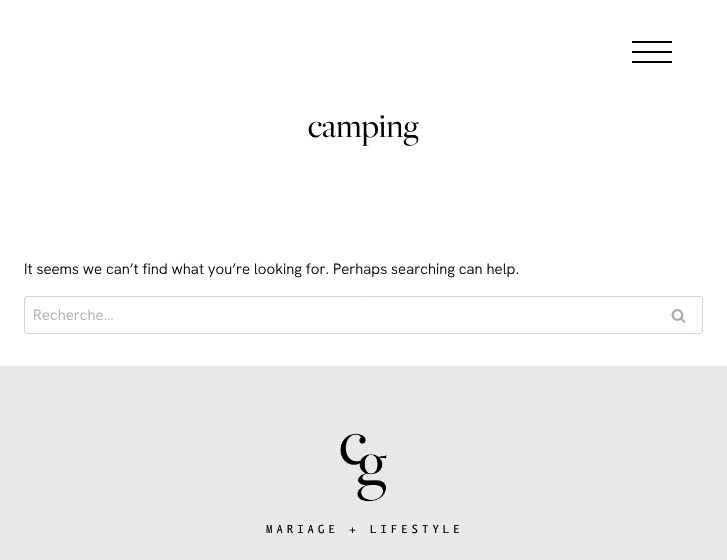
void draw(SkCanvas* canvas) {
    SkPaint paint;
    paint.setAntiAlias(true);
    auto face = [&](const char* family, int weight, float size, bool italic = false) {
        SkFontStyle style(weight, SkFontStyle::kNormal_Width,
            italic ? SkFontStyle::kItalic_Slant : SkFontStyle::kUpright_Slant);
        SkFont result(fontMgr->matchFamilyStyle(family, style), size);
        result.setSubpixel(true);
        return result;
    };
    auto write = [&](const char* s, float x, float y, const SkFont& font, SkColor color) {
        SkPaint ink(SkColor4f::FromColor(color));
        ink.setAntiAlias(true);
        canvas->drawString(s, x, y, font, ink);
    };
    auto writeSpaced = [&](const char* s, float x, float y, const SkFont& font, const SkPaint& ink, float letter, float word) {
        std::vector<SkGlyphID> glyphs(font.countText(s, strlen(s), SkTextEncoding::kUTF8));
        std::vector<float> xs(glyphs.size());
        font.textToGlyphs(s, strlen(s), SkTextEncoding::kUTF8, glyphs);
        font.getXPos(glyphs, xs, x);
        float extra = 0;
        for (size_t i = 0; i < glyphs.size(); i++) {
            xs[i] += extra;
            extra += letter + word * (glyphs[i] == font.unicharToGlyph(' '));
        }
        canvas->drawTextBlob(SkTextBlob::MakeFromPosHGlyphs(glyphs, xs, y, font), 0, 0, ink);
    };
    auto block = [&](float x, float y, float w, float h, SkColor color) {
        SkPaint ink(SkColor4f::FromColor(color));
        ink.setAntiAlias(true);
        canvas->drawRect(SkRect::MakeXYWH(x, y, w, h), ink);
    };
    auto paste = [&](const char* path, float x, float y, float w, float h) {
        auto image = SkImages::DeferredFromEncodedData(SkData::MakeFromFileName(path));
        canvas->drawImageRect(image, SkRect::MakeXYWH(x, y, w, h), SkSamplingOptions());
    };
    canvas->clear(SK_ColorWHITE);
    paint.setColor(SK_ColorBLACK);
    canvas->drawPath(SkPathBuilder().moveTo(672, 63).lineTo(632, 63).lineTo(632, 61).lineTo(672, 61).close().moveTo(672, 53).lineTo(632, 53).lineTo(632, 51).lineTo(672, 51).close().moveTo(672, 43).lineTo(632, 43).lineTo(632, 41).lineTo(672, 41).close().detach(), paint);
    auto kFont1 = face("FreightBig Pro", 400, 35);
    write("camping", 308, 137, kFont1, SK_ColorBLACK);
    auto kFont2 = face("Hanken Grotesk", 300, 15);
    write("It seems we can’t find what you’re looking for. Perhaps searching can help.", 24, 274, kFont2, SK_ColorBLACK);
    paint.setStyle(SkPaint::kStroke_Style);
    paint.setStrokeWidth(1);
    paint.setColor(SkColorSetRGB(203, 213, 224));
    canvas->drawRoundRect(SkRect::MakeXYWH(24.5f, 296.5f, 678, 37), 2.5f, 2.5f, paint);
    write("Recherche…", 33, 320, kFont2, SkColorSetRGB(170, 170, 170));
    paste("pic1.png", 671, 309, 15, 14);
    block(0, 366, 727, 194, SkColorSetRGB(234, 232, 231));
    paste("pic2.png", 340, 433, 47, 69);
    auto kFont3 = face("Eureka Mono", 400, 14);
    paint.setStyle(SkPaint::kFill_Style);
    paint.setColor(SK_ColorBLACK);
    writeSpaced("MARIAGE + LIFESTYLE", 265, 533, kFont3, paint, 2, 0);
}
